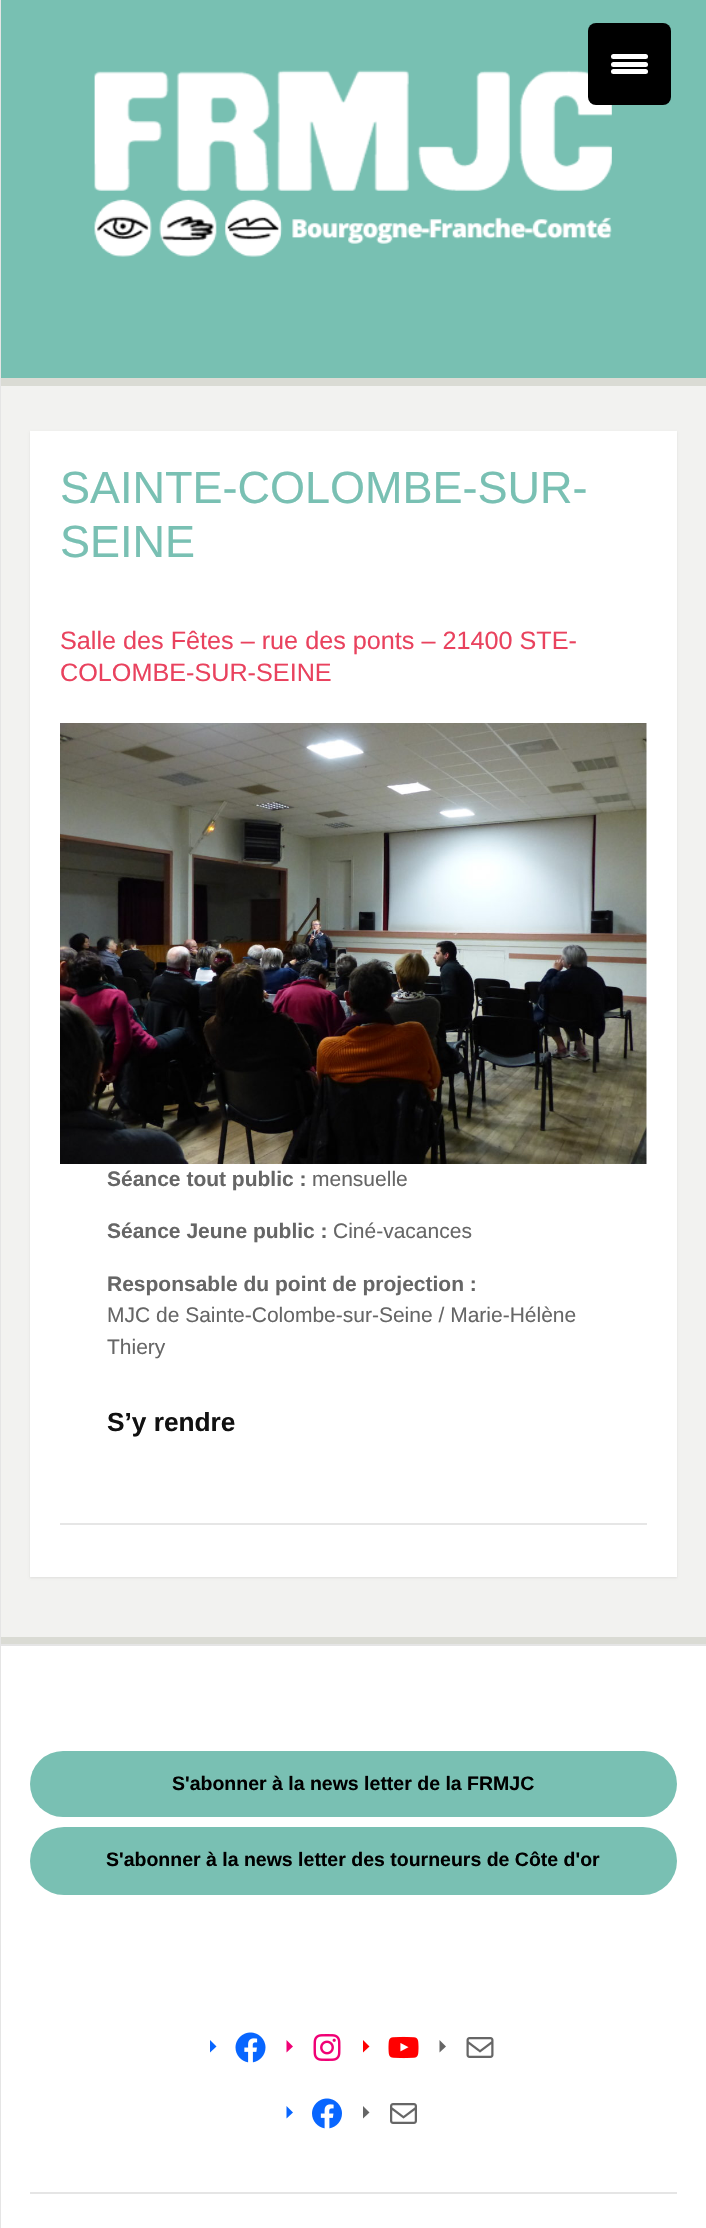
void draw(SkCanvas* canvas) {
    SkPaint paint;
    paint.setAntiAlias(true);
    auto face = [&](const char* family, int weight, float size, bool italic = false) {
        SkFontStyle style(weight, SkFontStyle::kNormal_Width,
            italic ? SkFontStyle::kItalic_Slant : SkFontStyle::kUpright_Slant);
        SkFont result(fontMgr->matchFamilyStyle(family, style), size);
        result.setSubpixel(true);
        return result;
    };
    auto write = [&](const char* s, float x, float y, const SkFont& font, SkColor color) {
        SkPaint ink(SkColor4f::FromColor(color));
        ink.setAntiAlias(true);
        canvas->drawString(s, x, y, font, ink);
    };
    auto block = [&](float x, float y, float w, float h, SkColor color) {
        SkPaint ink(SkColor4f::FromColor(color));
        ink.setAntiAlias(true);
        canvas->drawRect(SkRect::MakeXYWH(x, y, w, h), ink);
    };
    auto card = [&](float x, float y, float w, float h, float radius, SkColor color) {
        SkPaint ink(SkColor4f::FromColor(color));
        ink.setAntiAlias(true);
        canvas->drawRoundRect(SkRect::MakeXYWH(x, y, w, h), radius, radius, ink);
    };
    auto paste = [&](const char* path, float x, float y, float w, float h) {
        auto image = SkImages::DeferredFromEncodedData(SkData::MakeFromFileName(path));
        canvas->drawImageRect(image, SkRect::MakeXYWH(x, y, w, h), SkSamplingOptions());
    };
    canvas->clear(SK_ColorWHITE);
    block(1, 0, 705, 378, SkColorSetRGB(120, 192, 178));
    paste("pic1.png", 94, 70, 518, 187);
    card(588, 23, 83, 82, 8, SK_ColorBLACK);
    card(611, 62, 37, 5, 2.5f, SK_ColorWHITE);
    card(611, 54, 37, 5, 2.5f, SK_ColorWHITE);
    card(611, 69, 37, 5, 2.5f, SK_ColorWHITE);
    block(0, 378, 706, 8, SkColorSetRGB(218, 219, 212));
    block(0, 1637, 706, 7, SkColorSetRGB(218, 219, 212));
    block(0, 1644, 706, 2, SkColorSetRGB(229, 229, 229));
    block(0, 0, 1, 2228, SkColorSetRGB(229, 229, 229));
    block(1, 386, 705, 1251, SkColorSetRGB(242, 242, 240));
    paint.setColor(SkColorSetARGB(20, 0, 0, 0));
    paint.setMaskFilter(SkMaskFilter::MakeBlur(kNormal_SkBlurStyle, 1));
    canvas->drawRect(SkRect::MakeXYWH(30, 432, 647, 1146), paint);
    paint.setMaskFilter(nullptr);
    block(30, 431, 647, 1146, SK_ColorWHITE);
    auto kFont1 = face("Liberation Sans", 400, 45);
    write("SAINTE-COLOMBE-SUR-", 60, 503, kFont1, SkColorSetRGB(121, 192, 179));
    write("SEINE", 60, 557, kFont1, SkColorSetRGB(121, 192, 179));
    auto kFont2 = face("Liberation Sans", 400, 25.2f);
    write("Salle des Fêtes – rue des ponts – 21400 STE-", 60, 649, kFont2, SkColorSetRGB(233, 66, 94));
    write("COLOMBE-SUR-SEINE", 60, 681, kFont2, SkColorSetRGB(233, 66, 94));
    paste("pic2.png", 60, 723, 587, 441);
    auto kFont3 = face("Liberation Sans", 700, 21);
    write("Séance tout public :", 107, 1186, kFont3, SkColorSetRGB(102, 102, 102));
    auto kFont4 = face("Liberation Sans", 400, 21);
    write("mensuelle", 312, 1186, kFont4, SkColorSetRGB(102, 102, 102));
    write("Séance Jeune public :", 107, 1238, kFont3, SkColorSetRGB(102, 102, 102));
    write("Ciné-vacances", 333, 1238, kFont4, SkColorSetRGB(102, 102, 102));
    write("Responsable du point de projection :", 107, 1291, kFont3, SkColorSetRGB(102, 102, 102));
    write("MJC de Sainte-Colombe-sur-Seine / Marie-Hélène", 107, 1322, kFont4, SkColorSetRGB(102, 102, 102));
    write("Thiery", 107, 1354, kFont4, SkColorSetRGB(102, 102, 102));
    auto kFont5 = face("Liberation Sans", 700, 26.25f);
    write("S’y rendre", 107, 1431, kFont5, SkColorSetRGB(17, 17, 17));
    block(60, 1523, 587, 2, SkColorSetRGB(230, 230, 230));
    card(30, 1751, 647, 66, 33, SkColorSetRGB(121, 192, 179));
    auto kFont6 = face("Liberation Sans", 700, 19.5f);
    write("S'abonner à la news letter de la FRMJC", 172, 1790, kFont6, SK_ColorBLACK);
    card(30, 1827, 647, 68, 34, SkColorSetRGB(121, 192, 179));
    write("S'abonner à la news letter des tourneurs de Côte d'or", 106, 1866, kFont6, SK_ColorBLACK);
    paint.setColor(SkColorSetRGB(8, 102, 255));
    canvas->drawPath(SkPathBuilder().moveTo(210, 2052.5f).lineTo(210, 2040).lineTo(216.5f, 2046.5f).close().detach(), paint);
    paste("pic3.png", 235, 2032, 31, 31);
    paint.setColor(SkColorSetRGB(240, 0, 117));
    canvas->drawPath(SkPathBuilder().moveTo(286.5f, 2052.5f).lineTo(286.5f, 2040).lineTo(293, 2046.5f).close().detach(), paint);
    paste("pic4.png", 313, 2034, 28, 27);
    paint.setColor(SkColorSetRGB(255, 0, 0));
    canvas->drawPath(SkPathBuilder().moveTo(363, 2052.5f).lineTo(363, 2040).lineTo(369.5f, 2046.5f).close().detach(), paint);
    paste("pic5.png", 388, 2036, 31, 23);
    paint.setColor(SkColorSetRGB(102, 102, 102));
    canvas->drawPath(SkPathBuilder().moveTo(439.5f, 2052.5f).lineTo(439.5f, 2040).lineTo(446, 2046.5f).close().detach(), paint);
    paste("pic6.png", 466, 2037, 28, 21);
    paint.setColor(SkColorSetRGB(8, 102, 255));
    canvas->drawPath(SkPathBuilder().moveTo(286.5f, 2118.5f).lineTo(286.5f, 2106).lineTo(293, 2112.5f).close().detach(), paint);
    paste("pic7.png", 312, 2098, 30, 31);
    paint.setColor(SkColorSetRGB(102, 102, 102));
    canvas->drawPath(SkPathBuilder().moveTo(363, 2118.5f).lineTo(363, 2106).lineTo(369.5f, 2112.5f).close().detach(), paint);
    paste("pic8.png", 390, 2103, 27, 21);
    block(30, 2192, 647, 2, SkColorSetRGB(229, 229, 229));
}
